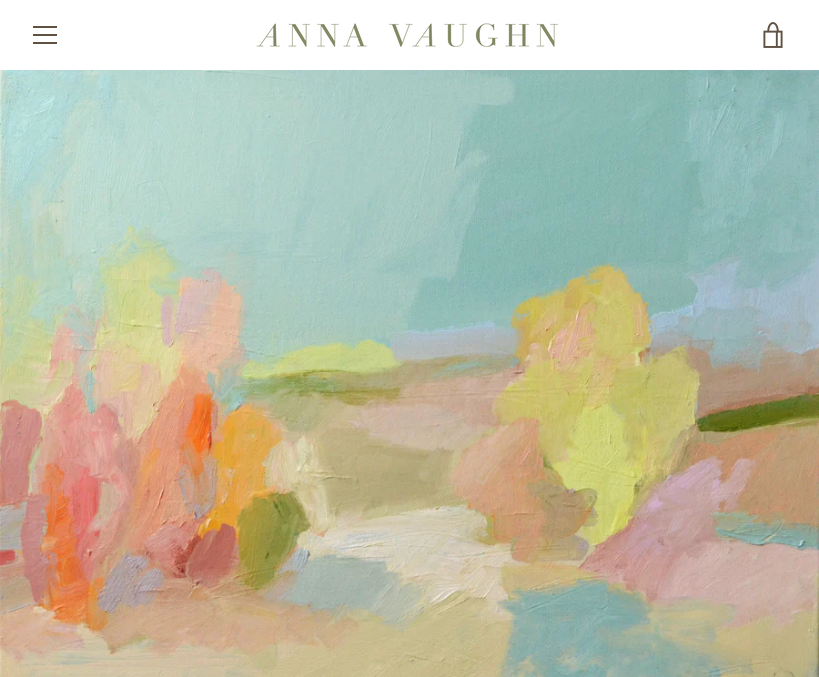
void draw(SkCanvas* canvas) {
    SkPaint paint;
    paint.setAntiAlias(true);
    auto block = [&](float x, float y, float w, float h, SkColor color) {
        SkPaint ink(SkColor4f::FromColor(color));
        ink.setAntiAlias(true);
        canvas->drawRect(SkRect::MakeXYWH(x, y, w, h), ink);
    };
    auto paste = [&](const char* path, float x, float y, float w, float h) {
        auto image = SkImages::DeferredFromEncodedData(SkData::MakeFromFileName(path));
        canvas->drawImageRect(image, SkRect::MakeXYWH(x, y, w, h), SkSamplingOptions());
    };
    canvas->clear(SK_ColorWHITE);
    block(33, 26, 24, 2, SkColorSetRGB(96, 82, 67));
    block(33, 34, 24, 2, SkColorSetRGB(96, 82, 67));
    block(33, 42, 24, 2, SkColorSetRGB(96, 82, 67));
    paste("pic1.png", 256, 23, 302, 24);
    paste("pic2.png", 763, 22, 20, 26);
    paste("pic3.png", 0, 70, 819, 607);
}
